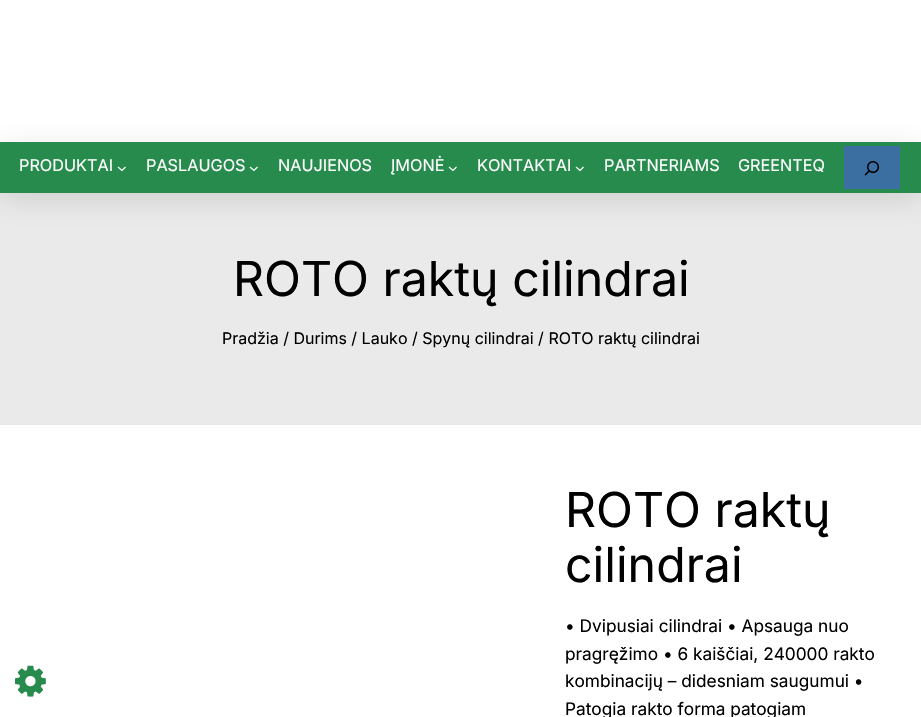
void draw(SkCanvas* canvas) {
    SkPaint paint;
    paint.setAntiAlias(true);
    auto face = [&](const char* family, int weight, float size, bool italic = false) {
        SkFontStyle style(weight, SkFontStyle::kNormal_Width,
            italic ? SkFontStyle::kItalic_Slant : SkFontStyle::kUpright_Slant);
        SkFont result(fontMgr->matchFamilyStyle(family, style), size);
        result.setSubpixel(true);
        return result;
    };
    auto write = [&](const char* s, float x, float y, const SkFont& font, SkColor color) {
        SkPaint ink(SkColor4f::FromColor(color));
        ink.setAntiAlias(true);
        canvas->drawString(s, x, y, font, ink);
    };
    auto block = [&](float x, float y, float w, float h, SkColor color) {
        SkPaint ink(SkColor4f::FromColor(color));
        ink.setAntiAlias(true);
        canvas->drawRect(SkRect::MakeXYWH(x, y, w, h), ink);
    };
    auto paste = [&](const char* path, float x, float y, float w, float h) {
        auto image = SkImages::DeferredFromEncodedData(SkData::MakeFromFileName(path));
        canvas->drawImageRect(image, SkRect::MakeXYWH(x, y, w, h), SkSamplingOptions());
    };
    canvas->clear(SK_ColorWHITE);
    block(0, 193, 921, 232, SkColorSetRGB(234, 234, 234));
    paint.setColor(SkColorSetARGB(51, 100, 100, 111));
    paint.setMaskFilter(SkMaskFilter::MakeBlur(kNormal_SkBlurStyle, 14.5f));
    canvas->drawRect(SkRect::MakeXYWH(0, 149, 921, 51), paint);
    paint.setMaskFilter(nullptr);
    block(0, 142, 921, 51, SkColorSetRGB(39, 139, 77));
    auto kFont1 = face("Inter", 400, 16.25f);
    write("PRODUKTAI", 19, 171, kFont1, SK_ColorWHITE);
    paint.setStyle(SkPaint::kStroke_Style);
    paint.setStrokeWidth(1.2f);
    paint.setColor(SK_ColorWHITE);
    canvas->drawPath(SkPathBuilder().moveTo(118, 167).lineTo(122, 170.5f).lineTo(125.5f, 167).detach(), paint);
    write("PASLAUGOS", 146, 171, kFont1, SK_ColorWHITE);
    canvas->drawPath(SkPathBuilder().moveTo(250, 167).lineTo(254, 170.5f).lineTo(257.5f, 167).detach(), paint);
    write("NAUJIENOS", 278, 171, kFont1, SK_ColorWHITE);
    write("ĮMONĖ", 391, 171, kFont1, SK_ColorWHITE);
    canvas->drawPath(SkPathBuilder().moveTo(449, 167).lineTo(453, 170.5f).lineTo(456.5f, 167).detach(), paint);
    write("KONTAKTAI", 477, 171, kFont1, SK_ColorWHITE);
    canvas->drawPath(SkPathBuilder().moveTo(576, 167).lineTo(580, 170.5f).lineTo(583.5f, 167).detach(), paint);
    write("PARTNERIAMS", 604, 171, kFont1, SK_ColorWHITE);
    write("GREENTEQ", 738, 171, kFont1, SK_ColorWHITE);
    block(844, 146, 56, 43, SkColorSetRGB(59, 111, 162));
    paste("pic1.png", 864, 161, 16, 15);
    auto kFont2 = face("Inter", 400, 48.25f);
    write("ROTO raktų cilindrai", 233, 296, kFont2, SK_ColorBLACK);
    auto kFont3 = face("Inter", 400, 16);
    write("Pradžia / Durims / Lauko / Spynų cilindrai / ROTO raktų cilindrai", 222, 344, kFont3, SK_ColorBLACK);
    write("ROTO raktų", 565, 527, kFont2, SK_ColorBLACK);
    write("cilindrai", 565, 582, kFont2, SK_ColorBLACK);
    auto kFont4 = face("Inter", 400, 17.25f);
    write("• Dvipusiai cilindrai • Apsauga nuo", 565, 632, kFont4, SK_ColorBLACK);
    write("pragręžimo • 6 kaiščiai, 240000 rakto", 565, 660, kFont4, SK_ColorBLACK);
    write("kombinacijų – didesniam saugumui •", 565, 687, kFont4, SK_ColorBLACK);
    write("Patogia rakto forma patogiam", 565, 715, kFont4, SK_ColorBLACK);
    paste("pic2.png", 15, 665, 31, 32);
}
